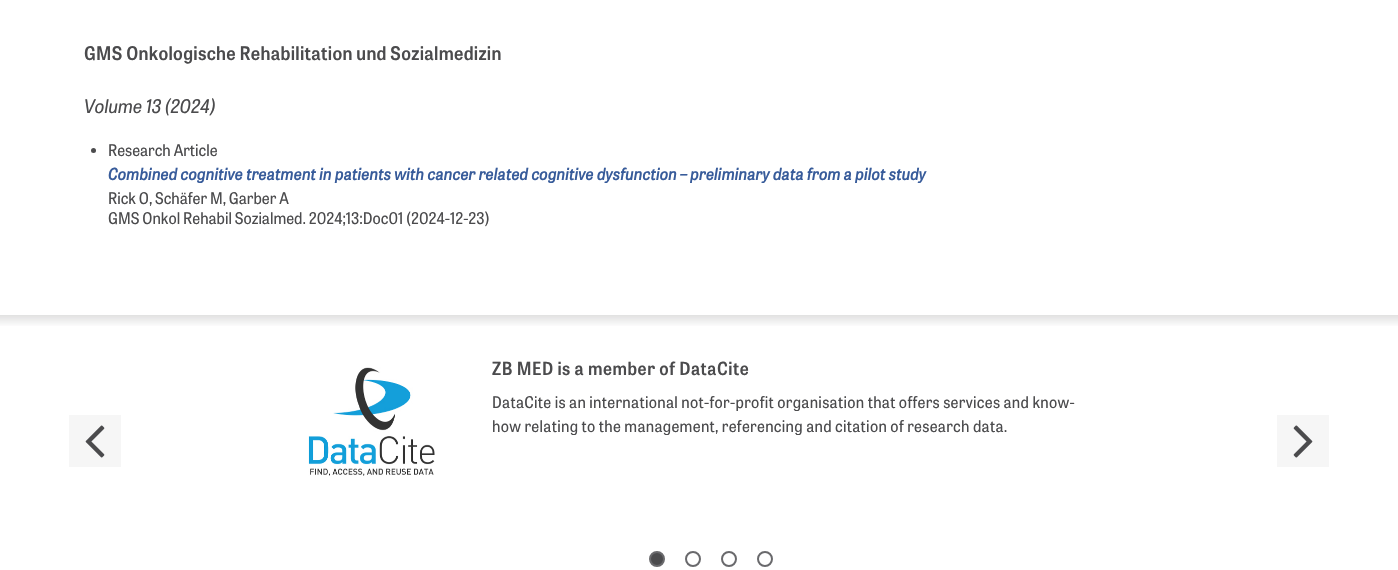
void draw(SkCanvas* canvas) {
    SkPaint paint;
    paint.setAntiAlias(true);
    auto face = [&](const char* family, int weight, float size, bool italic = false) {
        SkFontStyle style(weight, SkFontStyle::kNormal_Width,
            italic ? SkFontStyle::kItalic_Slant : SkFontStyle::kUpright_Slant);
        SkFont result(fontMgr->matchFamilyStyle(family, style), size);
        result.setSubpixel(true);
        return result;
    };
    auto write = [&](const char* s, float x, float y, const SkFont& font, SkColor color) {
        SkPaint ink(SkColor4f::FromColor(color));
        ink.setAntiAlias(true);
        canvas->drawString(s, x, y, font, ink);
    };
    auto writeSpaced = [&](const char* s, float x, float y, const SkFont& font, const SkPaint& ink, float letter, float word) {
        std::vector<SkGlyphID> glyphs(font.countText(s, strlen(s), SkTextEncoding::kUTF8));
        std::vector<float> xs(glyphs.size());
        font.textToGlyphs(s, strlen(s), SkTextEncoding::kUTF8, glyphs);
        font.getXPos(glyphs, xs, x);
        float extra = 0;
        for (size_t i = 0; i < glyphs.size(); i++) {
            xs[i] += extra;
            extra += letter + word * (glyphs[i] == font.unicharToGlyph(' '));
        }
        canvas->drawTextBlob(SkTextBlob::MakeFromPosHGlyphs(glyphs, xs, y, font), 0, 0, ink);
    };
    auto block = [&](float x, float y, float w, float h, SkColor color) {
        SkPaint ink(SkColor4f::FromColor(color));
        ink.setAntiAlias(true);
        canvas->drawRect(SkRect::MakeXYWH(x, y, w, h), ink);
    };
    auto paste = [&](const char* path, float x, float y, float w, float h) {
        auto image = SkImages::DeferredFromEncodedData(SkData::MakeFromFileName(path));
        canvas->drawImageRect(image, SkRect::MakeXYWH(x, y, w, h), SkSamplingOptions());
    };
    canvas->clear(SK_ColorWHITE);
    auto kFont1 = face("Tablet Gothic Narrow", 600, 18.7f);
    paint.setColor(SkColorSetRGB(75, 75, 77));
    writeSpaced("GMS Onkologische Rehabilitation und Sozialmedizin", 84, 60, kFont1, paint, 0.3f, 0);
    auto kFont2 = face("Tablet Gothic Narrow", 400, 18.7f, true);
    write("Volume 13 (2024)", 84, 113, kFont2, SkColorSetRGB(75, 75, 77));
    canvas->drawCircle(93.5f, 150.5f, 2.5f, paint);
    auto kFont3 = face("Tablet Gothic Narrow", 400, 16);
    write("Research Article", 108, 156, kFont3, SkColorSetRGB(75, 75, 77));
    auto kFont4 = face("Tablet Gothic Narrow", 700, 16, true);
    paint.setColor(SkColorSetRGB(55, 91, 154));
    writeSpaced("Combined cognitive treatment in patients with cancer related cognitive dysfunction – preliminary data from a pilot study", 108, 180, kFont4, paint, 0.3f, 0);
    write("Rick O, Schäfer M, Garber A", 108, 204, kFont3, SkColorSetRGB(75, 75, 77));
    write("GMS Onkol Rehabil Sozialmed. 2024;13:Doc01 (2024-12-23)", 108, 224, kFont3, SkColorSetRGB(75, 75, 77));
    paste("pic1.png", 0, 315, 1398, 11);
    block(69, 415, 52, 52, SkColorSetRGB(246, 246, 246));
    paste("pic2.png", 85, 425, 20, 33);
    paste("pic3.png", 308, 367, 127, 109);
    auto kFont5 = face("Tablet Gothic Narrow", 600, 18);
    paint.setColor(SkColorSetRGB(75, 75, 77));
    writeSpaced("ZB MED is a member of DataCite", 492, 375, kFont5, paint, 0.55f, 0);
    writeSpaced("DataCite is an international not-for-profit organisation that offers services and know-", 492, 408, kFont3, paint, 0.3f, 0);
    writeSpaced("how relating to the management, referencing and citation of research data.", 492, 432, kFont3, paint, 0.3f, 0);
    block(1277, 415, 52, 52, SkColorSetRGB(246, 246, 246));
    paste("pic4.png", 1293, 425, 20, 33);
    canvas->drawCircle(657, 559, 7, paint);
    paint.setStyle(SkPaint::kStroke_Style);
    paint.setStrokeWidth(2);
    paint.setColor(SkColorSetRGB(105, 105, 108));
    canvas->drawCircle(657, 559, 7, paint);
    canvas->drawCircle(693, 559, 7, paint);
    canvas->drawCircle(729, 559, 7, paint);
    canvas->drawCircle(765, 559, 7, paint);
}
